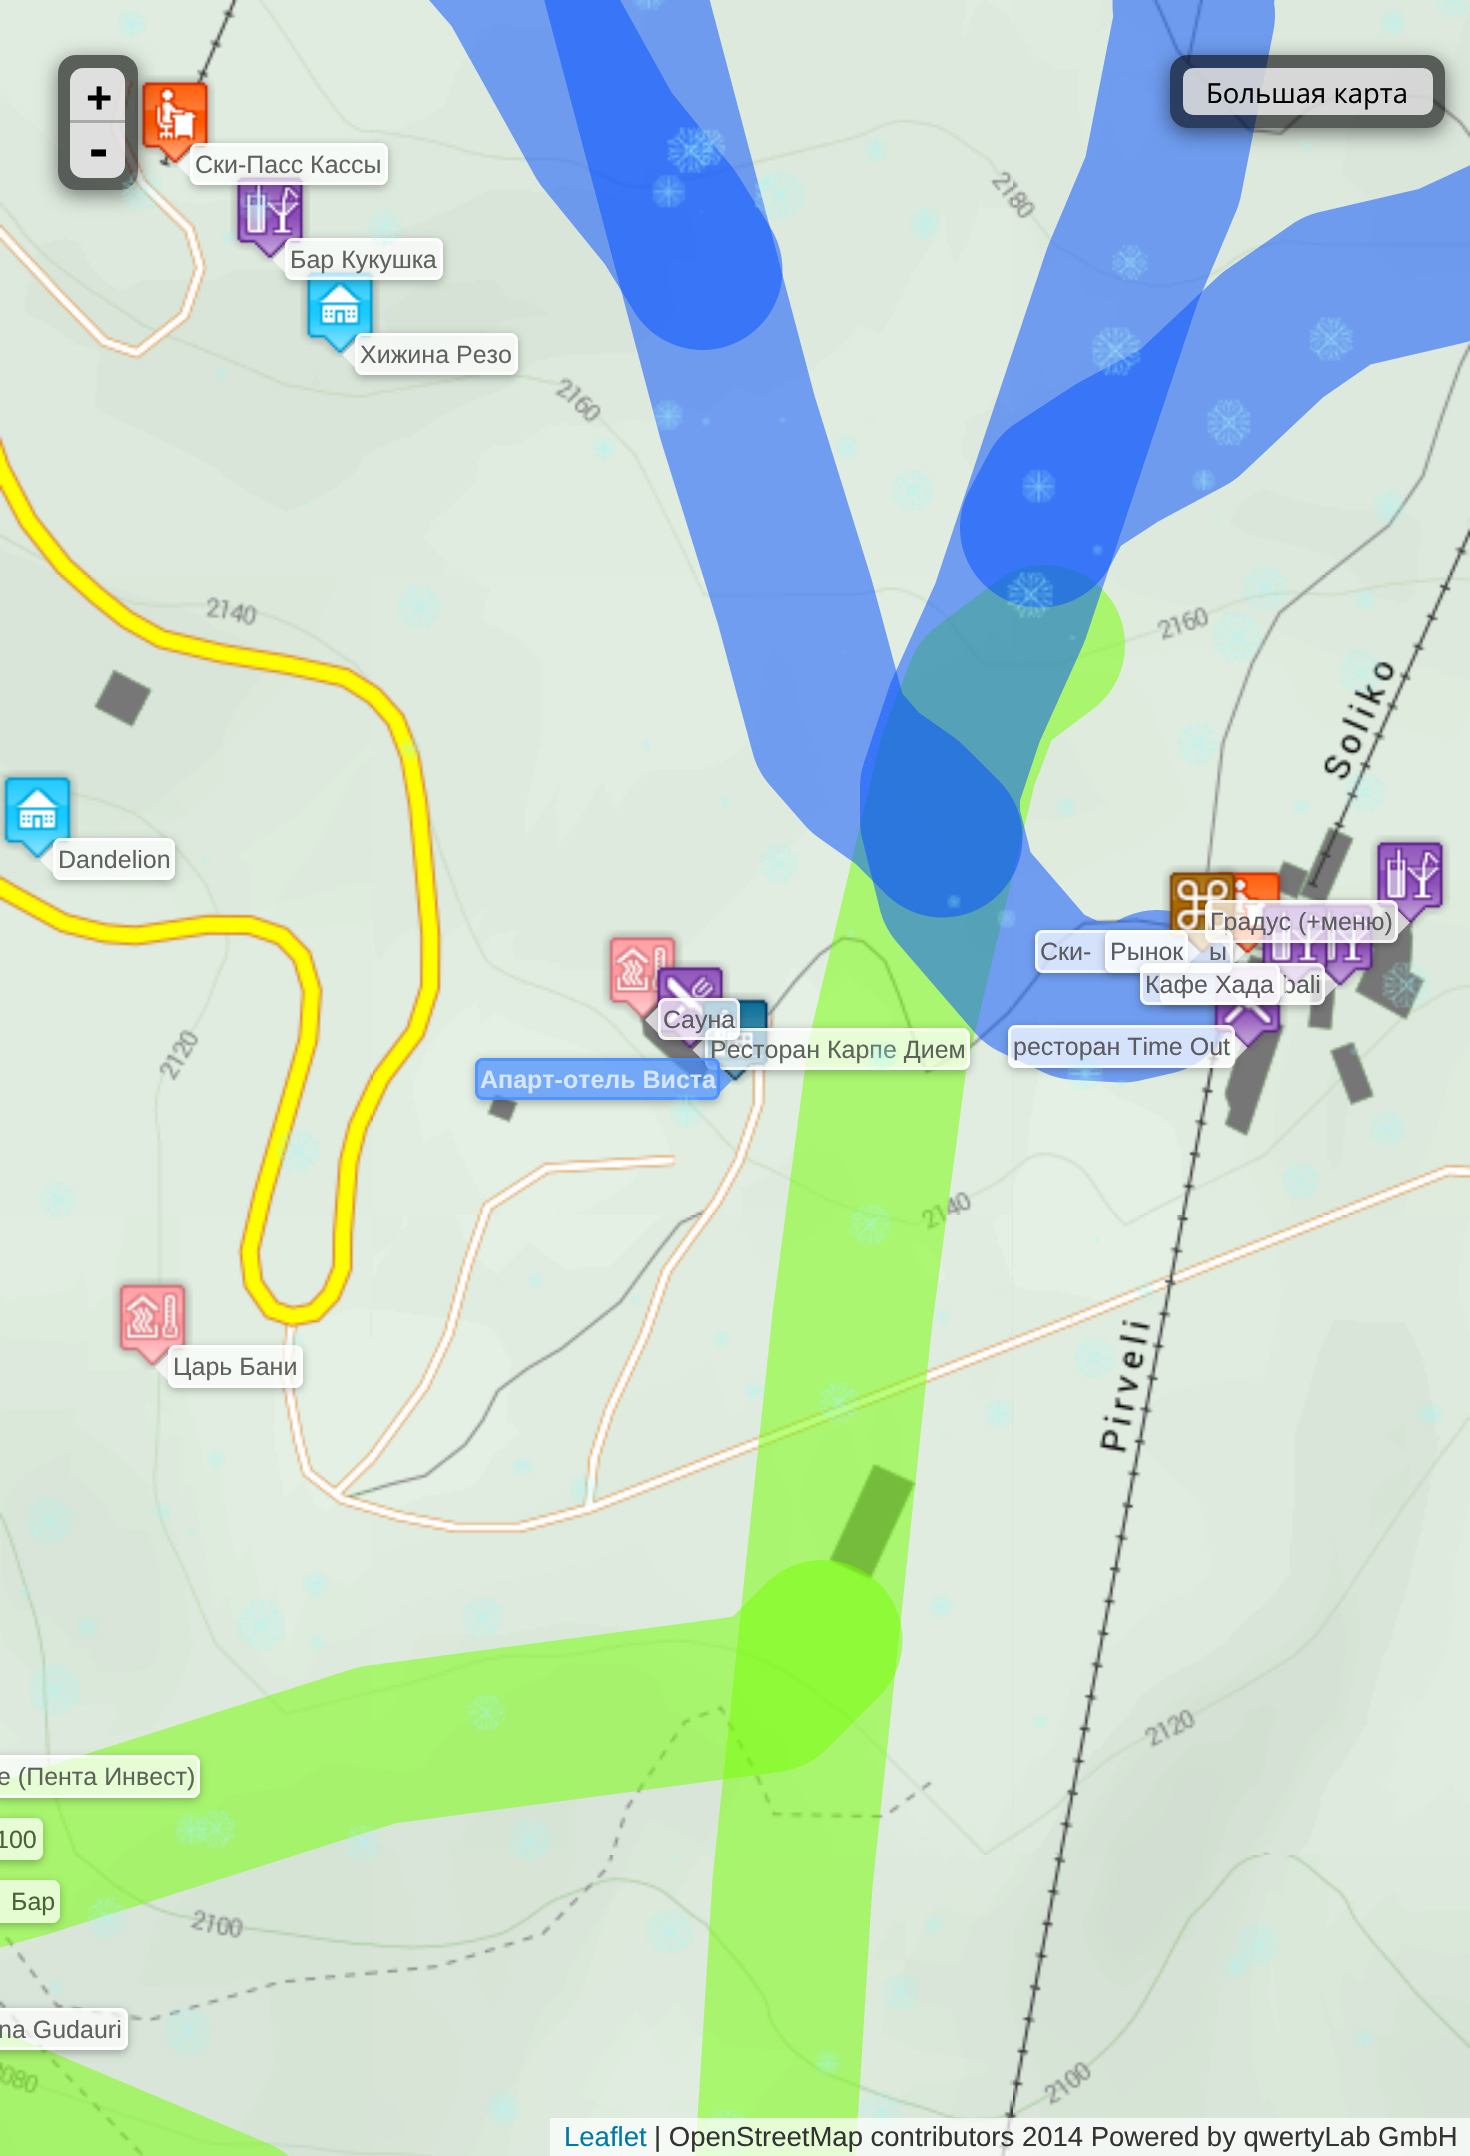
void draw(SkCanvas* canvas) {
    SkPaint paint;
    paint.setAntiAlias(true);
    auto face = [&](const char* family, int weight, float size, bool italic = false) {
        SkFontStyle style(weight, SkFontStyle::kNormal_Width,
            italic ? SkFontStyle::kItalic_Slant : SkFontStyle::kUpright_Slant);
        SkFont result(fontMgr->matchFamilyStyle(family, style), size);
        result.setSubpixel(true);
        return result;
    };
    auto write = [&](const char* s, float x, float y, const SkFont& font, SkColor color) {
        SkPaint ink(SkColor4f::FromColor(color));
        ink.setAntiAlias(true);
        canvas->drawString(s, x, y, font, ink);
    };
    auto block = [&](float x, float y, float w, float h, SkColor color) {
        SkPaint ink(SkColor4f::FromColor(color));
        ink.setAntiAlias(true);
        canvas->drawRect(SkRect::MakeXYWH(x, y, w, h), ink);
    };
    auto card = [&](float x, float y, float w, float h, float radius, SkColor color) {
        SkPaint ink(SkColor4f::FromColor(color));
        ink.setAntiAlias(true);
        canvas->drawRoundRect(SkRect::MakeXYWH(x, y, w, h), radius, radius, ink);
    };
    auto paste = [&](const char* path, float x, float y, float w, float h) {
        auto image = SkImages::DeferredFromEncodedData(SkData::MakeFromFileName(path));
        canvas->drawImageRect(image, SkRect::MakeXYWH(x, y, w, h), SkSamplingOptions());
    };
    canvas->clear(SkColorSetRGB(221, 221, 221));
    paste("pic2.png", 0, 0, 373, 575);
    paste("pic3.png", 373, 0, 640, 575);
    paste("pic4.png", 1013, 0, 457, 575);
    paste("pic5.png", 0, 575, 373, 640);
    paste("pic6.png", 373, 575, 640, 640);
    paste("pic7.png", 1013, 575, 457, 640);
    paste("pic8.png", 0, 1215, 373, 640);
    paste("pic9.png", 373, 1215, 640, 640);
    paste("pic10.png", 1013, 1215, 457, 640);
    paste("pic11.png", 0, 1855, 373, 301);
    paste("pic12.png", 373, 1855, 640, 301);
    paste("pic13.png", 1013, 1855, 457, 301);
    paste("pic14.png", 0, 0, 1470, 2156);
    paste("pic15.png", 135, 75, 80, 93);
    canvas->save();
    canvas->clipPath(SkPathBuilder(SkPathFillType::kEvenOdd).moveTo(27, 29).lineTo(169, 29).lineTo(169, 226).lineTo(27, 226).close().moveTo(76, 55).lineTo(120, 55).cubicTo(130, 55, 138, 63, 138, 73).lineTo(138, 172).cubicTo(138, 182, 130, 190, 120, 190).lineTo(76, 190).cubicTo(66, 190, 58, 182, 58, 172).lineTo(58, 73).cubicTo(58, 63, 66, 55, 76, 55).close().detach(), true);
    paint.setColor(SkColorSetARGB(128, 0, 0, 0));
    paint.setMaskFilter(SkMaskFilter::MakeBlur(kNormal_SkBlurStyle, 10));
    canvas->drawRoundRect(SkRect::MakeXYWH(58, 60, 80, 135), 18, 18, paint);
    paint.setMaskFilter(nullptr);
    canvas->restore();
    card(58, 55, 80, 135, 18, SkColorSetARGB(153, 0, 0, 0));
    paint.setColor(SkColorSetARGB(204, 255, 255, 255));
    canvas->drawPath(SkPathBuilder().moveTo(83, 68).lineTo(112, 68).cubicTo(119, 68, 125, 74, 125, 81).lineTo(125, 123).lineTo(70, 123).lineTo(70, 81).cubicTo(70, 74, 76, 68, 83, 68).close().detach(), paint);
    block(70, 120, 55, 3, SkColorSetRGB(170, 170, 170));
    auto kFont1 = face("Liberation Sans", 700, 45);
    write("+", 86, 113, kFont1, SK_ColorBLACK);
    canvas->drawPath(SkPathBuilder().moveTo(70, 123).lineTo(125, 123).lineTo(125, 165).cubicTo(125, 172, 119, 178, 112, 178).lineTo(83, 178).cubicTo(76, 178, 70, 172, 70, 165).close().detach(), paint);
    auto kFont2 = face("Liberation Sans", 700, 58);
    write("-", 89, 168, kFont2, SK_ColorBLACK);
    canvas->save();
    canvas->clipPath(SkPathBuilder(SkPathFillType::kEvenOdd).moveTo(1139, 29).lineTo(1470, 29).lineTo(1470, 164).lineTo(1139, 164).close().moveTo(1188, 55).lineTo(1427, 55).cubicTo(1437, 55, 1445, 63, 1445, 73).lineTo(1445, 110).cubicTo(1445, 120, 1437, 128, 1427, 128).lineTo(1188, 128).cubicTo(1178, 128, 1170, 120, 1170, 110).lineTo(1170, 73).cubicTo(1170, 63, 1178, 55, 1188, 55).close().detach(), true);
    paint.setColor(SkColorSetARGB(128, 0, 0, 0));
    paint.setMaskFilter(SkMaskFilter::MakeBlur(kNormal_SkBlurStyle, 10));
    canvas->drawRoundRect(SkRect::MakeXYWH(1170, 60, 275, 73), 18, 18, paint);
    paint.setMaskFilter(nullptr);
    canvas->restore();
    card(1170, 55, 275, 73, 18, SkColorSetARGB(153, 0, 0, 0));
    card(1183, 68, 250, 47, 10, SkColorSetARGB(191, 255, 255, 255));
    auto kFont3 = face("Open Sans", 400, 27.5f);
    write("Большая карта", 1206, 103, kFont3, SK_ColorBLACK);
    paste("pic16.png", 230, 170, 80, 93);
    paste("pic17.png", 300, 265, 80, 93);
    paste("pic18.png", 0, 770, 78, 93);
    paste("pic19.png", 602, 930, 81, 93);
    paste("pic20.png", 650, 960, 80, 92);
    paste("pic22.png", 1209, 865, 79, 93);
    paste("pic21.png", 1162, 865, 81, 93);
    paste("pic25.png", 1370, 835, 80, 93);
    paste("pic24.png", 1300, 897, 80, 93);
    paste("pic23.png", 1255, 897, 80, 93);
    paste("pic26.png", 695, 992, 80, 93);
    paste("pic27.png", 1207, 960, 81, 92);
    paste("pic28.png", 112, 1277, 81, 93);
    canvas->save();
    canvas->clipPath(SkPathBuilder(SkPathFillType::kEvenOdd).moveTo(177, 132).lineTo(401, 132).lineTo(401, 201).lineTo(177, 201).close().moveTo(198, 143).lineTo(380, 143).cubicTo(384.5f, 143, 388, 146.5f, 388, 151).lineTo(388, 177).cubicTo(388, 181.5f, 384.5f, 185, 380, 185).lineTo(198, 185).cubicTo(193.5f, 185, 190, 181.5f, 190, 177).lineTo(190, 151).cubicTo(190, 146.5f, 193.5f, 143, 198, 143).close().detach(), true);
    paint.setColor(SkColorSetARGB(71, 0, 0, 0));
    paint.setMaskFilter(SkMaskFilter::MakeBlur(kNormal_SkBlurStyle, 4));
    canvas->drawRoundRect(SkRect::MakeXYWH(190, 145, 198, 43), 8, 8, paint);
    paint.setMaskFilter(nullptr);
    canvas->restore();
    card(190, 143, 198, 42, 8, SkColorSetARGB(179, 255, 255, 255));
    paint.setStyle(SkPaint::kStroke_Style);
    paint.setStrokeWidth(3);
    paint.setColor(SkColorSetARGB(179, 255, 255, 255));
    canvas->drawRoundRect(SkRect::MakeXYWH(191.5f, 144.5f, 195, 39), 6.5f, 6.5f, paint);
    paint.setStyle(SkPaint::kFill_Style);
    canvas->drawPath(SkPathBuilder().moveTo(192.5f, 150).lineTo(192.5f, 180).lineTo(177.5f, 165).close().detach(), paint);
    auto kFont4 = face("Liberation Sans", 400, 25);
    write("Ски-Пасс Кассы", 195, 173, kFont4, SkColorSetRGB(97, 98, 96));
    canvas->save();
    canvas->clipPath(SkPathBuilder(SkPathFillType::kEvenOdd).moveTo(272, 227).lineTo(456, 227).lineTo(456, 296).lineTo(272, 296).close().moveTo(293, 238).lineTo(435, 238).cubicTo(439.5f, 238, 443, 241.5f, 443, 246).lineTo(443, 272).cubicTo(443, 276.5f, 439.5f, 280, 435, 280).lineTo(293, 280).cubicTo(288.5f, 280, 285, 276.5f, 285, 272).lineTo(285, 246).cubicTo(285, 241.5f, 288.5f, 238, 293, 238).close().detach(), true);
    paint.setColor(SkColorSetARGB(71, 0, 0, 0));
    paint.setMaskFilter(SkMaskFilter::MakeBlur(kNormal_SkBlurStyle, 4));
    canvas->drawRoundRect(SkRect::MakeXYWH(285, 240, 158, 43), 8, 8, paint);
    paint.setMaskFilter(nullptr);
    canvas->restore();
    card(285, 238, 158, 42, 8, SkColorSetARGB(179, 255, 255, 255));
    paint.setStyle(SkPaint::kStroke_Style);
    paint.setColor(SkColorSetARGB(179, 255, 255, 255));
    canvas->drawRoundRect(SkRect::MakeXYWH(286.5f, 239.5f, 155, 39), 6.5f, 6.5f, paint);
    paint.setStyle(SkPaint::kFill_Style);
    canvas->drawPath(SkPathBuilder().moveTo(287.5f, 245).lineTo(287.5f, 275).lineTo(272.5f, 260).close().detach(), paint);
    write("Бар Кукушка", 290, 268, kFont4, SkColorSetRGB(97, 98, 96));
    canvas->save();
    canvas->clipPath(SkPathBuilder(SkPathFillType::kEvenOdd).moveTo(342, 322).lineTo(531, 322).lineTo(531, 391).lineTo(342, 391).close().moveTo(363, 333).lineTo(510, 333).cubicTo(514.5f, 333, 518, 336.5f, 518, 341).lineTo(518, 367).cubicTo(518, 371.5f, 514.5f, 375, 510, 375).lineTo(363, 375).cubicTo(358.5f, 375, 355, 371.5f, 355, 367).lineTo(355, 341).cubicTo(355, 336.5f, 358.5f, 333, 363, 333).close().detach(), true);
    paint.setColor(SkColorSetARGB(71, 0, 0, 0));
    paint.setMaskFilter(SkMaskFilter::MakeBlur(kNormal_SkBlurStyle, 4));
    canvas->drawRoundRect(SkRect::MakeXYWH(355, 335, 163, 43), 8, 8, paint);
    paint.setMaskFilter(nullptr);
    canvas->restore();
    card(355, 333, 163, 42, 8, SkColorSetARGB(179, 255, 255, 255));
    paint.setStyle(SkPaint::kStroke_Style);
    paint.setColor(SkColorSetARGB(179, 255, 255, 255));
    canvas->drawRoundRect(SkRect::MakeXYWH(356.5f, 334.5f, 160, 39), 6.5f, 6.5f, paint);
    paint.setStyle(SkPaint::kFill_Style);
    canvas->drawPath(SkPathBuilder().moveTo(357.5f, 340).lineTo(357.5f, 370).lineTo(342.5f, 355).close().detach(), paint);
    write("Хижина Резо", 360, 363, kFont4, SkColorSetRGB(97, 98, 96));
    canvas->save();
    canvas->clipPath(SkPathBuilder(SkPathFillType::kEvenOdd).moveTo(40, 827).lineTo(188, 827).lineTo(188, 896).lineTo(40, 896).close().moveTo(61, 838).lineTo(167, 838).cubicTo(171.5f, 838, 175, 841.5f, 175, 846).lineTo(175, 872).cubicTo(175, 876.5f, 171.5f, 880, 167, 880).lineTo(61, 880).cubicTo(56.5f, 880, 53, 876.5f, 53, 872).lineTo(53, 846).cubicTo(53, 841.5f, 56.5f, 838, 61, 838).close().detach(), true);
    paint.setColor(SkColorSetARGB(71, 0, 0, 0));
    paint.setMaskFilter(SkMaskFilter::MakeBlur(kNormal_SkBlurStyle, 4));
    canvas->drawRoundRect(SkRect::MakeXYWH(53, 840, 122, 43), 8, 8, paint);
    paint.setMaskFilter(nullptr);
    canvas->restore();
    card(53, 838, 122, 42, 8, SkColorSetARGB(179, 255, 255, 255));
    paint.setStyle(SkPaint::kStroke_Style);
    paint.setColor(SkColorSetARGB(179, 255, 255, 255));
    canvas->drawRoundRect(SkRect::MakeXYWH(54.5f, 839.5f, 119, 39), 6.5f, 6.5f, paint);
    paint.setStyle(SkPaint::kFill_Style);
    canvas->drawPath(SkPathBuilder().moveTo(55, 845).lineTo(55, 875).lineTo(40, 860).close().detach(), paint);
    write("Dandelion", 58, 868, kFont4, SkColorSetRGB(97, 98, 96));
    canvas->save();
    canvas->clipPath(SkPathBuilder(SkPathFillType::kEvenOdd).moveTo(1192, 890).lineTo(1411, 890).lineTo(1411, 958).lineTo(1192, 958).close().moveTo(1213, 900).lineTo(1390, 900).cubicTo(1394.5f, 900, 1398, 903.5f, 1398, 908).lineTo(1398, 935).cubicTo(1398, 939.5f, 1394.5f, 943, 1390, 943).lineTo(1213, 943).cubicTo(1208.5f, 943, 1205, 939.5f, 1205, 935).lineTo(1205, 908).cubicTo(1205, 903.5f, 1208.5f, 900, 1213, 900).close().detach(), true);
    paint.setColor(SkColorSetARGB(71, 0, 0, 0));
    paint.setMaskFilter(SkMaskFilter::MakeBlur(kNormal_SkBlurStyle, 4));
    canvas->drawRoundRect(SkRect::MakeXYWH(1205, 903, 193, 42), 8, 8, paint);
    paint.setMaskFilter(nullptr);
    canvas->restore();
    card(1205, 900, 193, 43, 8, SkColorSetARGB(179, 255, 255, 255));
    paint.setStyle(SkPaint::kStroke_Style);
    paint.setColor(SkColorSetARGB(179, 255, 255, 255));
    canvas->drawRoundRect(SkRect::MakeXYWH(1206.5f, 901.5f, 190, 40), 6.5f, 6.5f, paint);
    write("Градус (+меню)", 1210, 930, kFont4, SkColorSetRGB(91, 91, 96));
    paint.setStyle(SkPaint::kFill_Style);
    canvas->drawPath(SkPathBuilder().moveTo(1395, 937.5f).lineTo(1395, 907.5f).lineTo(1410, 922.5f).close().detach(), paint);
    canvas->save();
    canvas->clipPath(SkPathBuilder(SkPathFillType::kEvenOdd).moveTo(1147, 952).lineTo(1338, 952).lineTo(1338, 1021).lineTo(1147, 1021).close().moveTo(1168, 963).lineTo(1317, 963).cubicTo(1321.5f, 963, 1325, 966.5f, 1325, 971).lineTo(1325, 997).cubicTo(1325, 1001.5f, 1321.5f, 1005, 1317, 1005).lineTo(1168, 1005).cubicTo(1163.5f, 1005, 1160, 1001.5f, 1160, 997).lineTo(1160, 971).cubicTo(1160, 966.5f, 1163.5f, 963, 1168, 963).close().detach(), true);
    paint.setColor(SkColorSetARGB(71, 0, 0, 0));
    paint.setMaskFilter(SkMaskFilter::MakeBlur(kNormal_SkBlurStyle, 4));
    canvas->drawRoundRect(SkRect::MakeXYWH(1160, 965, 165, 43), 8, 8, paint);
    paint.setMaskFilter(nullptr);
    canvas->restore();
    card(1160, 963, 165, 42, 8, SkColorSetARGB(179, 255, 255, 255));
    paint.setStyle(SkPaint::kStroke_Style);
    paint.setColor(SkColorSetARGB(179, 255, 255, 255));
    canvas->drawRoundRect(SkRect::MakeXYWH(1161.5f, 964.5f, 162, 39), 6.5f, 6.5f, paint);
    canvas->save();
    canvas->clipPath(SkPathBuilder(SkPathFillType::kEvenOdd).moveTo(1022, 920).lineTo(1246, 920).lineTo(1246, 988).lineTo(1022, 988).close().moveTo(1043, 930).lineTo(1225, 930).cubicTo(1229.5f, 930, 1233, 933.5f, 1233, 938).lineTo(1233, 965).cubicTo(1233, 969.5f, 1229.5f, 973, 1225, 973).lineTo(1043, 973).cubicTo(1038.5f, 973, 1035, 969.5f, 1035, 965).lineTo(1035, 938).cubicTo(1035, 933.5f, 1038.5f, 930, 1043, 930).close().detach(), true);
    paint.setStyle(SkPaint::kFill_Style);
    paint.setColor(SkColorSetARGB(71, 0, 0, 0));
    paint.setMaskFilter(SkMaskFilter::MakeBlur(kNormal_SkBlurStyle, 4));
    canvas->drawRoundRect(SkRect::MakeXYWH(1035, 933, 198, 42), 8, 8, paint);
    paint.setMaskFilter(nullptr);
    canvas->restore();
    card(1035, 930, 198, 43, 8, SkColorSetARGB(179, 255, 255, 255));
    paint.setStyle(SkPaint::kStroke_Style);
    paint.setColor(SkColorSetARGB(179, 255, 255, 255));
    canvas->drawRoundRect(SkRect::MakeXYWH(1036.5f, 931.5f, 195, 40), 6.5f, 6.5f, paint);
    write("Ски-", 1040, 960, kFont4, SkColorSetRGB(91, 91, 96));
    write("ы", 1209, 960, kFont4, SkColorSetRGB(91, 91, 96));
    paint.setStyle(SkPaint::kFill_Style);
    canvas->drawPath(SkPathBuilder().moveTo(1230, 967.5f).lineTo(1230, 937.5f).lineTo(1245, 952.5f).close().detach(), paint);
    canvas->save();
    canvas->clipPath(SkPathBuilder(SkPathFillType::kEvenOdd).moveTo(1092, 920).lineTo(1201, 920).lineTo(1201, 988).lineTo(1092, 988).close().moveTo(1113, 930).lineTo(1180, 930).cubicTo(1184.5f, 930, 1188, 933.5f, 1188, 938).lineTo(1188, 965).cubicTo(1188, 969.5f, 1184.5f, 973, 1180, 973).lineTo(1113, 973).cubicTo(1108.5f, 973, 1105, 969.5f, 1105, 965).lineTo(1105, 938).cubicTo(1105, 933.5f, 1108.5f, 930, 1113, 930).close().detach(), true);
    paint.setColor(SkColorSetARGB(71, 0, 0, 0));
    paint.setMaskFilter(SkMaskFilter::MakeBlur(kNormal_SkBlurStyle, 4));
    canvas->drawRoundRect(SkRect::MakeXYWH(1105, 933, 83, 42), 8, 8, paint);
    paint.setMaskFilter(nullptr);
    canvas->restore();
    card(1105, 930, 83, 43, 8, SkColorSetARGB(179, 255, 255, 255));
    paint.setStyle(SkPaint::kStroke_Style);
    paint.setColor(SkColorSetARGB(179, 255, 255, 255));
    canvas->drawRoundRect(SkRect::MakeXYWH(1106.5f, 931.5f, 80, 40), 6.5f, 6.5f, paint);
    write("Рынок", 1110, 960, kFont4, SkColorSetRGB(91, 91, 96));
    paint.setStyle(SkPaint::kFill_Style);
    canvas->drawPath(SkPathBuilder().moveTo(1185, 967.5f).lineTo(1185, 937.5f).lineTo(1200, 952.5f).close().detach(), paint);
    canvas->save();
    canvas->clipPath(SkPathBuilder(SkPathFillType::kEvenOdd).moveTo(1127, 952).lineTo(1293, 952).lineTo(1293, 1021).lineTo(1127, 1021).close().moveTo(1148, 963).lineTo(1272, 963).cubicTo(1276.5f, 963, 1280, 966.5f, 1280, 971).lineTo(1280, 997).cubicTo(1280, 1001.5f, 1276.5f, 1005, 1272, 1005).lineTo(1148, 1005).cubicTo(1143.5f, 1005, 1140, 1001.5f, 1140, 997).lineTo(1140, 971).cubicTo(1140, 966.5f, 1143.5f, 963, 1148, 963).close().detach(), true);
    paint.setColor(SkColorSetARGB(71, 0, 0, 0));
    paint.setMaskFilter(SkMaskFilter::MakeBlur(kNormal_SkBlurStyle, 4));
    canvas->drawRoundRect(SkRect::MakeXYWH(1140, 965, 140, 43), 8, 8, paint);
    paint.setMaskFilter(nullptr);
    canvas->restore();
    card(1140, 963, 140, 42, 8, SkColorSetARGB(179, 255, 255, 255));
    paint.setStyle(SkPaint::kStroke_Style);
    paint.setColor(SkColorSetARGB(179, 255, 255, 255));
    canvas->drawRoundRect(SkRect::MakeXYWH(1141.5f, 964.5f, 137, 39), 6.5f, 6.5f, paint);
    write("Кафе Хада", 1145, 993, kFont4, SkColorSetRGB(91, 91, 96));
    write("bali", 1282, 993, kFont4, SkColorSetRGB(91, 91, 96));
    paint.setStyle(SkPaint::kFill_Style);
    canvas->drawPath(SkPathBuilder().moveTo(1277.5f, 1000).lineTo(1277.5f, 970).lineTo(1292.5f, 985).close().detach(), paint);
    canvas->drawPath(SkPathBuilder().moveTo(1322.5f, 1000).lineTo(1322.5f, 970).lineTo(1337.5f, 985).close().detach(), paint);
    canvas->save();
    canvas->clipPath(SkPathBuilder(SkPathFillType::kEvenOdd).moveTo(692, 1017).lineTo(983, 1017).lineTo(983, 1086).lineTo(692, 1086).close().moveTo(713, 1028).lineTo(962, 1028).cubicTo(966.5f, 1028, 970, 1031.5f, 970, 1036).lineTo(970, 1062).cubicTo(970, 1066.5f, 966.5f, 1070, 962, 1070).lineTo(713, 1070).cubicTo(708.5f, 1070, 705, 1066.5f, 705, 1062).lineTo(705, 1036).cubicTo(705, 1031.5f, 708.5f, 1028, 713, 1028).close().detach(), true);
    paint.setColor(SkColorSetARGB(71, 0, 0, 0));
    paint.setMaskFilter(SkMaskFilter::MakeBlur(kNormal_SkBlurStyle, 4));
    canvas->drawRoundRect(SkRect::MakeXYWH(705, 1030, 265, 43), 8, 8, paint);
    paint.setMaskFilter(nullptr);
    canvas->restore();
    card(705, 1028, 265, 42, 8, SkColorSetARGB(179, 255, 255, 255));
    paint.setStyle(SkPaint::kStroke_Style);
    paint.setColor(SkColorSetARGB(179, 255, 255, 255));
    canvas->drawRoundRect(SkRect::MakeXYWH(706.5f, 1029.5f, 262, 39), 6.5f, 6.5f, paint);
    paint.setStyle(SkPaint::kFill_Style);
    canvas->drawPath(SkPathBuilder().moveTo(707.5f, 1035).lineTo(707.5f, 1065).lineTo(692.5f, 1050).close().detach(), paint);
    canvas->save();
    canvas->clipPath(SkPathBuilder(SkPathFillType::kEvenOdd).moveTo(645, 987).lineTo(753, 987).lineTo(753, 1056).lineTo(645, 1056).close().moveTo(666, 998).lineTo(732, 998).cubicTo(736.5f, 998, 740, 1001.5f, 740, 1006).lineTo(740, 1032).cubicTo(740, 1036.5f, 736.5f, 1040, 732, 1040).lineTo(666, 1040).cubicTo(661.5f, 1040, 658, 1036.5f, 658, 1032).lineTo(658, 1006).cubicTo(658, 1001.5f, 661.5f, 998, 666, 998).close().detach(), true);
    paint.setColor(SkColorSetARGB(71, 0, 0, 0));
    paint.setMaskFilter(SkMaskFilter::MakeBlur(kNormal_SkBlurStyle, 4));
    canvas->drawRoundRect(SkRect::MakeXYWH(658, 1000, 82, 43), 8, 8, paint);
    paint.setMaskFilter(nullptr);
    canvas->restore();
    card(658, 998, 82, 42, 8, SkColorSetARGB(179, 255, 255, 255));
    paint.setStyle(SkPaint::kStroke_Style);
    paint.setColor(SkColorSetARGB(179, 255, 255, 255));
    canvas->drawRoundRect(SkRect::MakeXYWH(659.5f, 999.5f, 79, 39), 6.5f, 6.5f, paint);
    paint.setStyle(SkPaint::kFill_Style);
    canvas->drawPath(SkPathBuilder().moveTo(660, 1005).lineTo(660, 1035).lineTo(645, 1020).close().detach(), paint);
    write("Сауна", 663, 1028, kFont4, SkColorSetRGB(91, 91, 96));
    write("Ресторан Карпе Дием", 710, 1058, kFont4, SkColorSetRGB(93, 99, 88));
    canvas->save();
    canvas->clipPath(SkPathBuilder(SkPathFillType::kEvenOdd).moveTo(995, 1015).lineTo(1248, 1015).lineTo(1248, 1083).lineTo(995, 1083).close().moveTo(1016, 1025).lineTo(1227, 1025).cubicTo(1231.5f, 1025, 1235, 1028.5f, 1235, 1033).lineTo(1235, 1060).cubicTo(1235, 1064.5f, 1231.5f, 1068, 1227, 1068).lineTo(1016, 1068).cubicTo(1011.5f, 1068, 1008, 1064.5f, 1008, 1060).lineTo(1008, 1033).cubicTo(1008, 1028.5f, 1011.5f, 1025, 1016, 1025).close().detach(), true);
    paint.setColor(SkColorSetARGB(71, 0, 0, 0));
    paint.setMaskFilter(SkMaskFilter::MakeBlur(kNormal_SkBlurStyle, 4));
    canvas->drawRoundRect(SkRect::MakeXYWH(1008, 1028, 227, 42), 8, 8, paint);
    paint.setMaskFilter(nullptr);
    canvas->restore();
    card(1008, 1025, 227, 43, 8, SkColorSetARGB(179, 255, 255, 255));
    paint.setStyle(SkPaint::kStroke_Style);
    paint.setColor(SkColorSetARGB(179, 255, 255, 255));
    canvas->drawRoundRect(SkRect::MakeXYWH(1009.5f, 1026.5f, 224, 40), 6.5f, 6.5f, paint);
    write("ресторан Time Out", 1013, 1055, kFont4, SkColorSetRGB(91, 91, 96));
    paint.setStyle(SkPaint::kFill_Style);
    canvas->drawPath(SkPathBuilder().moveTo(1232.5f, 1062.5f).lineTo(1232.5f, 1032.5f).lineTo(1247.5f, 1047.5f).close().detach(), paint);
    canvas->save();
    canvas->clipPath(SkPathBuilder(SkPathFillType::kEvenOdd).moveTo(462, 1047).lineTo(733, 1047).lineTo(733, 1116).lineTo(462, 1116).close().moveTo(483, 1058).lineTo(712, 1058).cubicTo(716.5f, 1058, 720, 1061.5f, 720, 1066).lineTo(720, 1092).cubicTo(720, 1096.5f, 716.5f, 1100, 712, 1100).lineTo(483, 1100).cubicTo(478.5f, 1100, 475, 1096.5f, 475, 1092).lineTo(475, 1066).cubicTo(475, 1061.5f, 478.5f, 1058, 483, 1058).close().detach(), true);
    paint.setColor(SkColorSetARGB(71, 0, 0, 0));
    paint.setMaskFilter(SkMaskFilter::MakeBlur(kNormal_SkBlurStyle, 4));
    canvas->drawRoundRect(SkRect::MakeXYWH(475, 1060, 245, 43), 8, 8, paint);
    paint.setMaskFilter(nullptr);
    canvas->restore();
    card(475, 1058, 245, 42, 8, SkColorSetARGB(179, 68, 138, 255));
    paint.setStyle(SkPaint::kStroke_Style);
    paint.setColor(SkColorSetARGB(179, 68, 138, 255));
    canvas->drawRoundRect(SkRect::MakeXYWH(476.5f, 1059.5f, 242, 39), 6.5f, 6.5f, paint);
    auto kFont5 = face("Liberation Sans", 700, 25);
    write("Апарт-отель Виста", 480, 1088, kFont5, SkColorSetRGB(213, 229, 252));
    paint.setStyle(SkPaint::kFill_Style);
    canvas->drawPath(SkPathBuilder().moveTo(717.5f, 1095).lineTo(717.5f, 1065).lineTo(732.5f, 1080).close().detach(), paint);
    canvas->save();
    canvas->clipPath(SkPathBuilder(SkPathFillType::kEvenOdd).moveTo(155, 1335).lineTo(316, 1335).lineTo(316, 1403).lineTo(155, 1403).close().moveTo(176, 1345).lineTo(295, 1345).cubicTo(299.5f, 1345, 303, 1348.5f, 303, 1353).lineTo(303, 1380).cubicTo(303, 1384.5f, 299.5f, 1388, 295, 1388).lineTo(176, 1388).cubicTo(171.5f, 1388, 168, 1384.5f, 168, 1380).lineTo(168, 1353).cubicTo(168, 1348.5f, 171.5f, 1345, 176, 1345).close().detach(), true);
    paint.setColor(SkColorSetARGB(71, 0, 0, 0));
    paint.setMaskFilter(SkMaskFilter::MakeBlur(kNormal_SkBlurStyle, 4));
    canvas->drawRoundRect(SkRect::MakeXYWH(168, 1348, 135, 42), 8, 8, paint);
    paint.setMaskFilter(nullptr);
    canvas->restore();
    card(168, 1345, 135, 43, 8, SkColorSetARGB(179, 255, 255, 255));
    paint.setStyle(SkPaint::kStroke_Style);
    paint.setColor(SkColorSetARGB(179, 255, 255, 255));
    canvas->drawRoundRect(SkRect::MakeXYWH(169.5f, 1346.5f, 132, 40), 6.5f, 6.5f, paint);
    paint.setStyle(SkPaint::kFill_Style);
    canvas->drawPath(SkPathBuilder().moveTo(170, 1352.5f).lineTo(170, 1382.5f).lineTo(155, 1367.5f).close().detach(), paint);
    write("Царь Бани", 173, 1375, kFont4, SkColorSetRGB(97, 98, 96));
    canvas->save();
    canvas->clipPath(SkPathBuilder(SkPathFillType::kEvenOdd).moveTo(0, 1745).lineTo(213, 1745).lineTo(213, 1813).lineTo(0, 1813).close().moveTo(-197, 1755).lineTo(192, 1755).cubicTo(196.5f, 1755, 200, 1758.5f, 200, 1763).lineTo(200, 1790).cubicTo(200, 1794.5f, 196.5f, 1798, 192, 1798).lineTo(-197, 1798).cubicTo(-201.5f, 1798, -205, 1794.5f, -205, 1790).lineTo(-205, 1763).cubicTo(-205, 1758.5f, -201.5f, 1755, -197, 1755).close().detach(), true);
    paint.setColor(SkColorSetARGB(71, 0, 0, 0));
    paint.setMaskFilter(SkMaskFilter::MakeBlur(kNormal_SkBlurStyle, 4));
    canvas->drawRoundRect(SkRect::MakeXYWH(-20, 1758, 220, 42), 8, 8, paint);
    paint.setMaskFilter(nullptr);
    canvas->restore();
    paint.setColor(SkColorSetARGB(179, 255, 255, 255));
    canvas->drawPath(SkPathBuilder().moveTo(0, 1755).lineTo(192, 1755).cubicTo(196.5f, 1755, 200, 1758.5f, 200, 1763).lineTo(200, 1790).cubicTo(200, 1794.5f, 196.5f, 1798, 192, 1798).lineTo(0, 1798).close().detach(), paint);
    paint.setStyle(SkPaint::kStroke_Style);
    canvas->drawRoundRect(SkRect::MakeXYWH(-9.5f, 1756.5f, 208, 40), 6.5f, 6.5f, paint);
    write("е (Пента Инвест)", -3, 1785, kFont4, SkColorSetRGB(93, 99, 88));
    paint.setStyle(SkPaint::kFill_Style);
    paint.setColor(SkColorSetARGB(102, 50, 73, 33));
    paint.setMaskFilter(SkMaskFilter::MakeBlur(kNormal_SkBlurStyle, 4));
    canvas->drawRoundRect(SkRect::MakeXYWH(-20, 1820, 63, 43), 8, 8, paint);
    paint.setMaskFilter(nullptr);
    paint.setColor(SkColorSetRGB(229, 252, 212));
    canvas->drawPath(SkPathBuilder().moveTo(0, 1818).lineTo(35, 1818).cubicTo(39.5f, 1818, 43, 1821.5f, 43, 1826).lineTo(43, 1852).cubicTo(43, 1856.5f, 39.5f, 1860, 35, 1860).lineTo(0, 1860).close().detach(), paint);
    paint.setStyle(SkPaint::kStroke_Style);
    paint.setColor(SkColorSetRGB(229, 252, 211));
    canvas->drawRoundRect(SkRect::MakeXYWH(-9.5f, 1819.5f, 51, 39), 6.5f, 6.5f, paint);
    write("100", -5, 1848, kFont4, SkColorSetRGB(74, 97, 57));
    paint.setStyle(SkPaint::kFill_Style);
    paint.setColor(SkColorSetARGB(71, 0, 0, 0));
    paint.setMaskFilter(SkMaskFilter::MakeBlur(kNormal_SkBlurStyle, 4));
    canvas->drawRoundRect(SkRect::MakeXYWH(-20, 1883, 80, 42), 8, 8, paint);
    paint.setMaskFilter(nullptr);
    paint.setColor(SkColorSetRGB(229, 252, 211));
    canvas->drawPath(SkPathBuilder().moveTo(0, 1880).lineTo(52, 1880).cubicTo(56.5f, 1880, 60, 1883.5f, 60, 1888).lineTo(60, 1915).cubicTo(60, 1919.5f, 56.5f, 1923, 52, 1923).lineTo(0, 1923).close().detach(), paint);
    paint.setStyle(SkPaint::kStroke_Style);
    canvas->drawRoundRect(SkRect::MakeXYWH(-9.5f, 1881.5f, 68, 40), 6.5f, 6.5f, paint);
    write("Бар", 11, 1910, kFont4, SkColorSetRGB(74, 97, 57));
    canvas->save();
    canvas->clipPath(SkPathBuilder(SkPathFillType::kEvenOdd).moveTo(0, 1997).lineTo(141, 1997).lineTo(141, 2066).lineTo(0, 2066).close().moveTo(-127, 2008).lineTo(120, 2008).cubicTo(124.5f, 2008, 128, 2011.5f, 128, 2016).lineTo(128, 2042).cubicTo(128, 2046.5f, 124.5f, 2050, 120, 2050).lineTo(-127, 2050).cubicTo(-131.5f, 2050, -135, 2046.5f, -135, 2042).lineTo(-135, 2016).cubicTo(-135, 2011.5f, -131.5f, 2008, -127, 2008).close().detach(), true);
    paint.setStyle(SkPaint::kFill_Style);
    paint.setColor(SkColorSetARGB(71, 0, 0, 0));
    paint.setMaskFilter(SkMaskFilter::MakeBlur(kNormal_SkBlurStyle, 4));
    canvas->drawRoundRect(SkRect::MakeXYWH(-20, 2010, 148, 43), 8, 8, paint);
    paint.setMaskFilter(nullptr);
    canvas->restore();
    paint.setColor(SkColorSetARGB(179, 255, 255, 255));
    canvas->drawPath(SkPathBuilder().moveTo(0, 2008).lineTo(120, 2008).cubicTo(124.5f, 2008, 128, 2011.5f, 128, 2016).lineTo(128, 2042).cubicTo(128, 2046.5f, 124.5f, 2050, 120, 2050).lineTo(0, 2050).close().detach(), paint);
    paint.setStyle(SkPaint::kStroke_Style);
    canvas->drawRoundRect(SkRect::MakeXYWH(-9.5f, 2009.5f, 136, 39), 6.5f, 6.5f, paint);
    write("na Gudauri", -2, 2038, kFont4, SkColorSetRGB(97, 98, 96));
    paste("pic1.png", 20, 0, 1450, 2156);
    block(550, 2118, 920, 38, SkColorSetARGB(179, 255, 255, 255));
    auto kFont6 = face("Liberation Sans", 400, 27.5f);
    write("Leaflet", 564, 2146, kFont6, SkColorSetRGB(0, 120, 168));
    write("| OpenStreetMap contributors 2014 Powered by qwertyLab GmbH", 654, 2146, kFont6, SkColorSetRGB(51, 51, 51));
}
